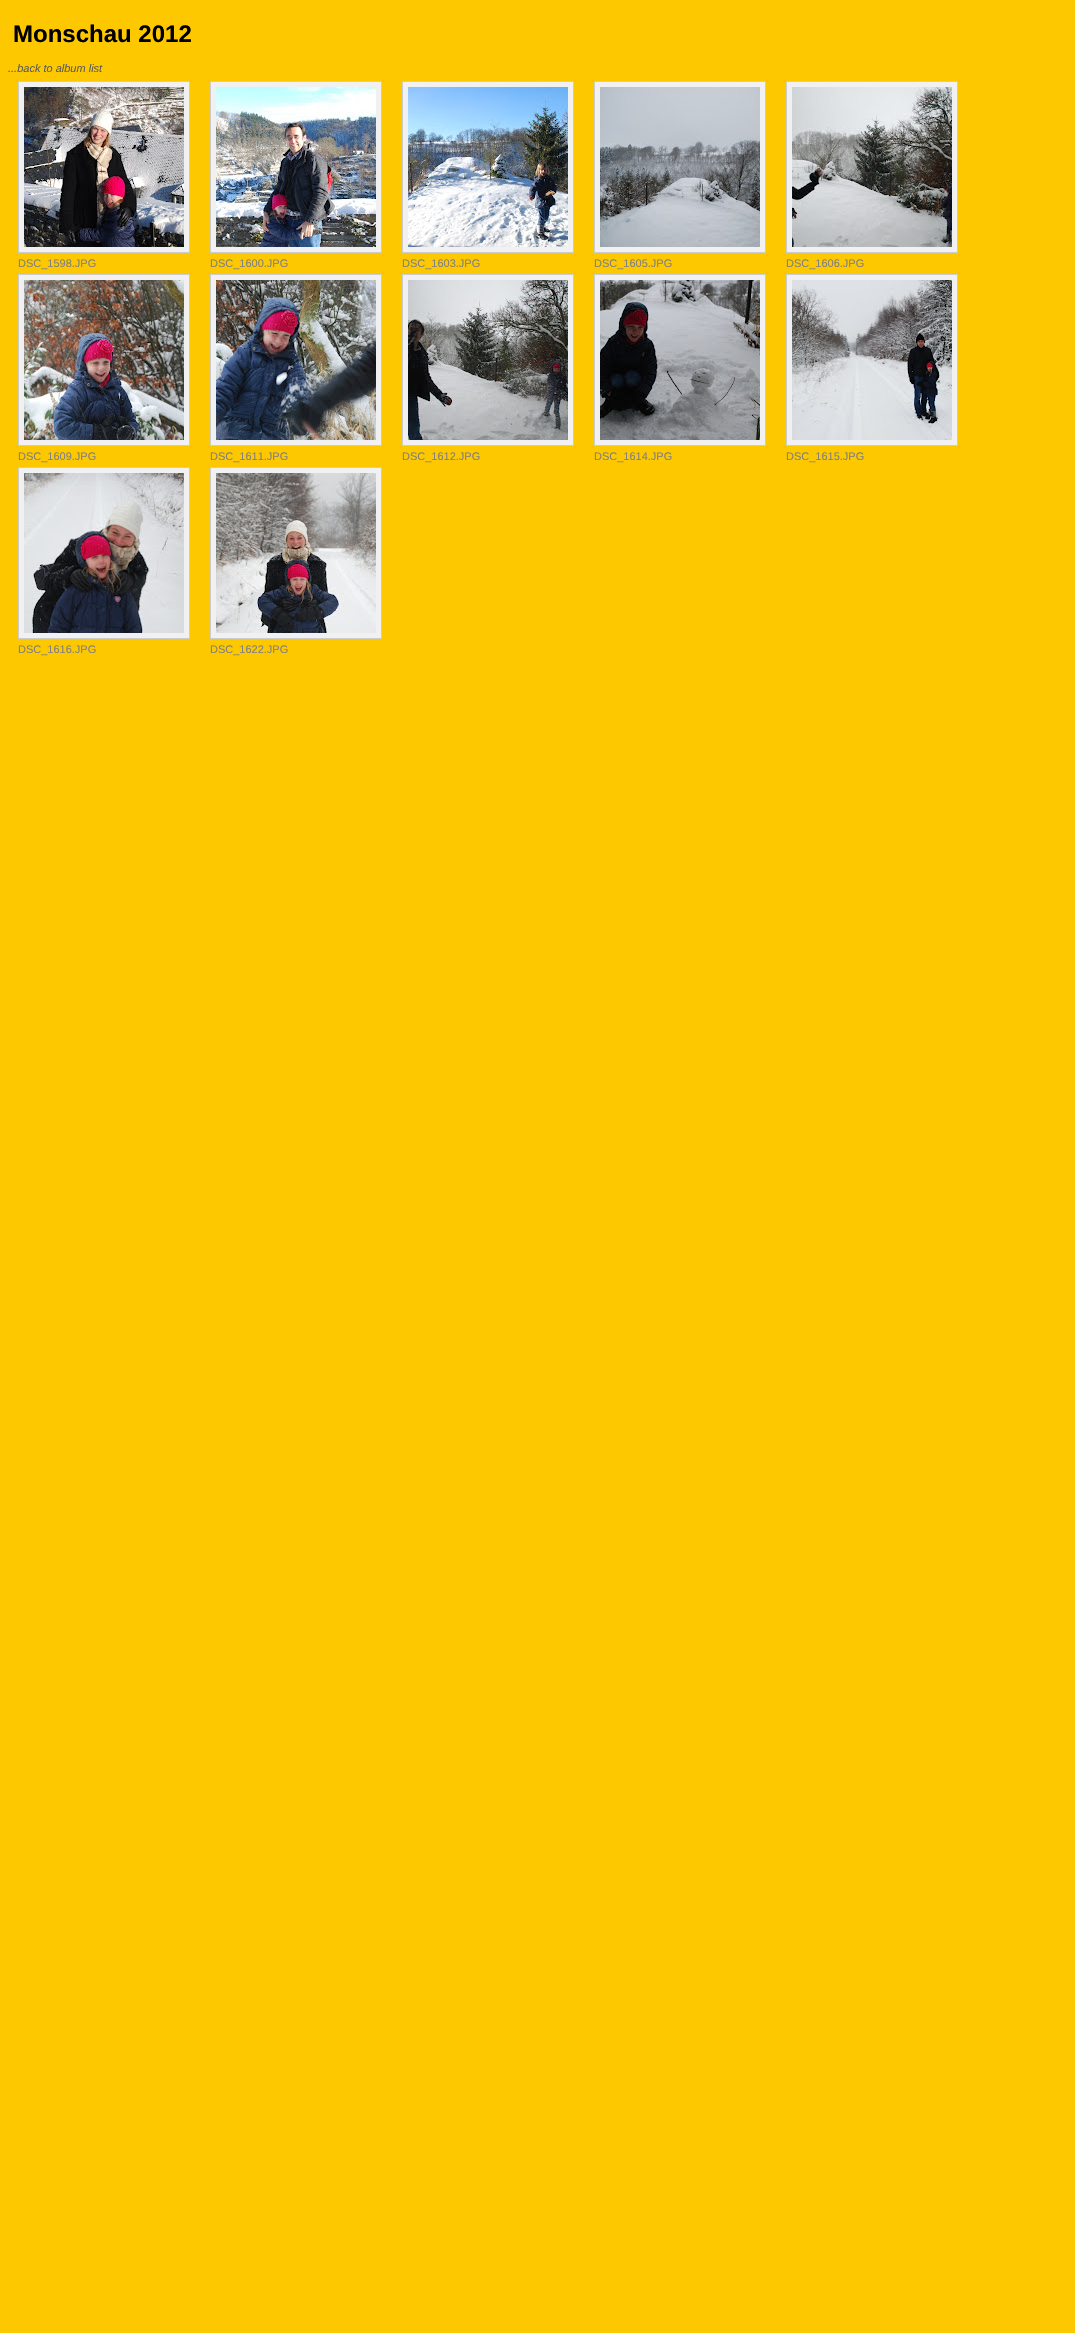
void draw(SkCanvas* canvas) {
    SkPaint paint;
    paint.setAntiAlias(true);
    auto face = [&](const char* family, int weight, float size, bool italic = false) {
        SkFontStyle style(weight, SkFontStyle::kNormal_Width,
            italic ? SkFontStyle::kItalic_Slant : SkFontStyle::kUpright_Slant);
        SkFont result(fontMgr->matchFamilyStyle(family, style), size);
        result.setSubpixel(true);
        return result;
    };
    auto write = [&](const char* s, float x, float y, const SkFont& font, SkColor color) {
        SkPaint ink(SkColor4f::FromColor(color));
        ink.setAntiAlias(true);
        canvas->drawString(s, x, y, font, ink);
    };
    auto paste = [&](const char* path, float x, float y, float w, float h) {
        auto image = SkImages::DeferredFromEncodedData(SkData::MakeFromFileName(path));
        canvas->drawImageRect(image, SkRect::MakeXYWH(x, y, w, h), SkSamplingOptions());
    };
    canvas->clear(SkColorSetRGB(253, 200, 0));
    auto kFont1 = face("Liberation Sans", 700, 24);
    write("Monschau 2012", 13, 42, kFont1, SK_ColorBLACK);
    auto kFont2 = face("Liberation Sans", 400, 11, true);
    write("...back to album list", 8, 72, kFont2, SkColorSetRGB(92, 92, 92));
    paint.setColor(SkColorSetRGB(241, 241, 241));
    canvas->drawRect(SkRect::MakeXYWH(18.5f, 81.5f, 171, 171), paint);
    paint.setStyle(SkPaint::kStroke_Style);
    paint.setStrokeWidth(1);
    paint.setColor(SkColorSetRGB(204, 204, 204));
    canvas->drawRect(SkRect::MakeXYWH(18.5f, 81.5f, 171, 171), paint);
    paste("pic1.png", 24, 87, 160, 160);
    auto kFont3 = face("Liberation Sans", 400, 11);
    write("DSC_1598.JPG", 18, 267, kFont3, SkColorSetRGB(128, 128, 128));
    paint.setStyle(SkPaint::kFill_Style);
    paint.setColor(SkColorSetRGB(241, 241, 241));
    canvas->drawRect(SkRect::MakeXYWH(210.5f, 81.5f, 171, 171), paint);
    paint.setStyle(SkPaint::kStroke_Style);
    paint.setColor(SkColorSetRGB(204, 204, 204));
    canvas->drawRect(SkRect::MakeXYWH(210.5f, 81.5f, 171, 171), paint);
    paste("pic2.png", 216, 87, 160, 160);
    write("DSC_1600.JPG", 210, 267, kFont3, SkColorSetRGB(128, 128, 128));
    paint.setStyle(SkPaint::kFill_Style);
    paint.setColor(SkColorSetRGB(241, 241, 241));
    canvas->drawRect(SkRect::MakeXYWH(402.5f, 81.5f, 171, 171), paint);
    paint.setStyle(SkPaint::kStroke_Style);
    paint.setColor(SkColorSetRGB(204, 204, 204));
    canvas->drawRect(SkRect::MakeXYWH(402.5f, 81.5f, 171, 171), paint);
    paste("pic3.png", 408, 87, 160, 160);
    write("DSC_1603.JPG", 402, 267, kFont3, SkColorSetRGB(128, 128, 128));
    paint.setStyle(SkPaint::kFill_Style);
    paint.setColor(SkColorSetRGB(241, 241, 241));
    canvas->drawRect(SkRect::MakeXYWH(594.5f, 81.5f, 171, 171), paint);
    paint.setStyle(SkPaint::kStroke_Style);
    paint.setColor(SkColorSetRGB(204, 204, 204));
    canvas->drawRect(SkRect::MakeXYWH(594.5f, 81.5f, 171, 171), paint);
    paste("pic4.png", 600, 87, 160, 160);
    write("DSC_1605.JPG", 594, 267, kFont3, SkColorSetRGB(128, 128, 128));
    paint.setStyle(SkPaint::kFill_Style);
    paint.setColor(SkColorSetRGB(241, 241, 241));
    canvas->drawRect(SkRect::MakeXYWH(786.5f, 81.5f, 171, 171), paint);
    paint.setStyle(SkPaint::kStroke_Style);
    paint.setColor(SkColorSetRGB(204, 204, 204));
    canvas->drawRect(SkRect::MakeXYWH(786.5f, 81.5f, 171, 171), paint);
    paste("pic5.png", 792, 87, 160, 160);
    write("DSC_1606.JPG", 786, 267, kFont3, SkColorSetRGB(128, 128, 128));
    paint.setStyle(SkPaint::kFill_Style);
    paint.setColor(SkColorSetRGB(241, 241, 241));
    canvas->drawRect(SkRect::MakeXYWH(18.5f, 274.5f, 171, 171), paint);
    paint.setStyle(SkPaint::kStroke_Style);
    paint.setColor(SkColorSetRGB(204, 204, 204));
    canvas->drawRect(SkRect::MakeXYWH(18.5f, 274.5f, 171, 171), paint);
    paste("pic6.png", 24, 280, 160, 160);
    write("DSC_1609.JPG", 18, 460, kFont3, SkColorSetRGB(128, 128, 128));
    paint.setStyle(SkPaint::kFill_Style);
    paint.setColor(SkColorSetRGB(241, 241, 241));
    canvas->drawRect(SkRect::MakeXYWH(210.5f, 274.5f, 171, 171), paint);
    paint.setStyle(SkPaint::kStroke_Style);
    paint.setColor(SkColorSetRGB(204, 204, 204));
    canvas->drawRect(SkRect::MakeXYWH(210.5f, 274.5f, 171, 171), paint);
    paste("pic7.png", 216, 280, 160, 160);
    write("DSC_1611.JPG", 210, 460, kFont3, SkColorSetRGB(128, 128, 128));
    paint.setStyle(SkPaint::kFill_Style);
    paint.setColor(SkColorSetRGB(241, 241, 241));
    canvas->drawRect(SkRect::MakeXYWH(402.5f, 274.5f, 171, 171), paint);
    paint.setStyle(SkPaint::kStroke_Style);
    paint.setColor(SkColorSetRGB(204, 204, 204));
    canvas->drawRect(SkRect::MakeXYWH(402.5f, 274.5f, 171, 171), paint);
    paste("pic8.png", 408, 280, 160, 160);
    write("DSC_1612.JPG", 402, 460, kFont3, SkColorSetRGB(128, 128, 128));
    paint.setStyle(SkPaint::kFill_Style);
    paint.setColor(SkColorSetRGB(241, 241, 241));
    canvas->drawRect(SkRect::MakeXYWH(594.5f, 274.5f, 171, 171), paint);
    paint.setStyle(SkPaint::kStroke_Style);
    paint.setColor(SkColorSetRGB(204, 204, 204));
    canvas->drawRect(SkRect::MakeXYWH(594.5f, 274.5f, 171, 171), paint);
    paste("pic9.png", 600, 280, 160, 160);
    write("DSC_1614.JPG", 594, 460, kFont3, SkColorSetRGB(128, 128, 128));
    paint.setStyle(SkPaint::kFill_Style);
    paint.setColor(SkColorSetRGB(241, 241, 241));
    canvas->drawRect(SkRect::MakeXYWH(786.5f, 274.5f, 171, 171), paint);
    paint.setStyle(SkPaint::kStroke_Style);
    paint.setColor(SkColorSetRGB(204, 204, 204));
    canvas->drawRect(SkRect::MakeXYWH(786.5f, 274.5f, 171, 171), paint);
    paste("pic10.png", 792, 280, 160, 160);
    write("DSC_1615.JPG", 786, 460, kFont3, SkColorSetRGB(128, 128, 128));
    paint.setStyle(SkPaint::kFill_Style);
    paint.setColor(SkColorSetRGB(241, 241, 241));
    canvas->drawRect(SkRect::MakeXYWH(18.5f, 467.5f, 171, 171), paint);
    paint.setStyle(SkPaint::kStroke_Style);
    paint.setColor(SkColorSetRGB(204, 204, 204));
    canvas->drawRect(SkRect::MakeXYWH(18.5f, 467.5f, 171, 171), paint);
    paste("pic11.png", 24, 473, 160, 160);
    write("DSC_1616.JPG", 18, 653, kFont3, SkColorSetRGB(128, 128, 128));
    paint.setStyle(SkPaint::kFill_Style);
    paint.setColor(SkColorSetRGB(241, 241, 241));
    canvas->drawRect(SkRect::MakeXYWH(210.5f, 467.5f, 171, 171), paint);
    paint.setStyle(SkPaint::kStroke_Style);
    paint.setColor(SkColorSetRGB(204, 204, 204));
    canvas->drawRect(SkRect::MakeXYWH(210.5f, 467.5f, 171, 171), paint);
    paste("pic12.png", 216, 473, 160, 160);
    write("DSC_1622.JPG", 210, 653, kFont3, SkColorSetRGB(128, 128, 128));
}
